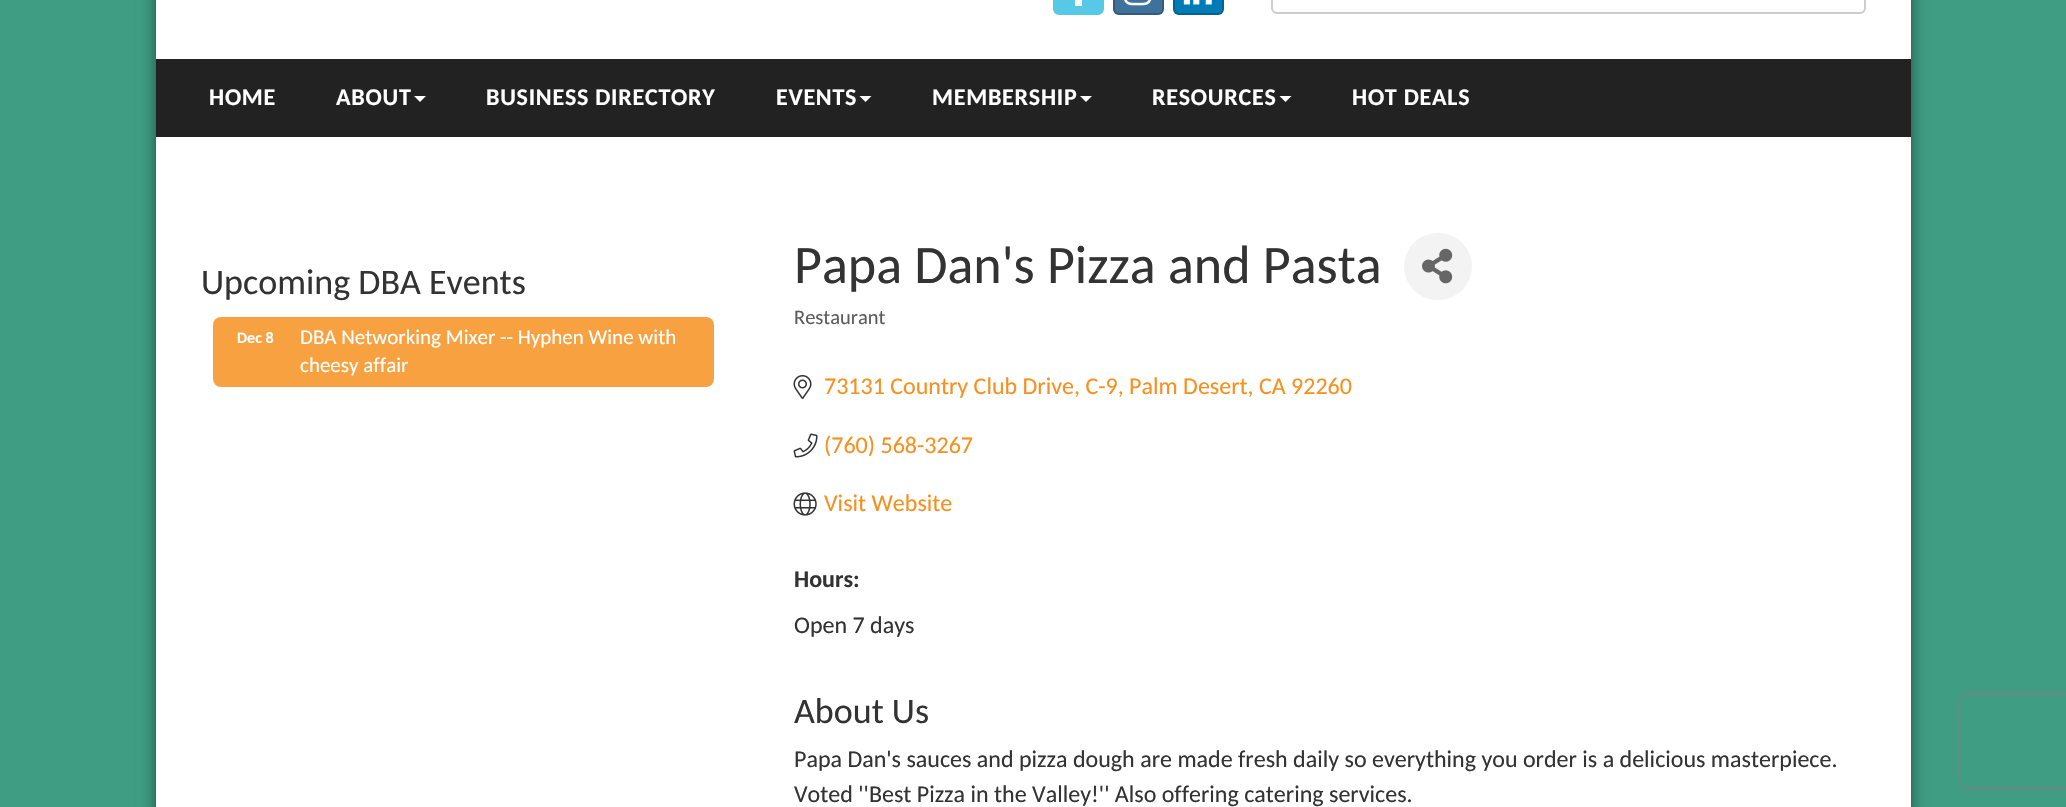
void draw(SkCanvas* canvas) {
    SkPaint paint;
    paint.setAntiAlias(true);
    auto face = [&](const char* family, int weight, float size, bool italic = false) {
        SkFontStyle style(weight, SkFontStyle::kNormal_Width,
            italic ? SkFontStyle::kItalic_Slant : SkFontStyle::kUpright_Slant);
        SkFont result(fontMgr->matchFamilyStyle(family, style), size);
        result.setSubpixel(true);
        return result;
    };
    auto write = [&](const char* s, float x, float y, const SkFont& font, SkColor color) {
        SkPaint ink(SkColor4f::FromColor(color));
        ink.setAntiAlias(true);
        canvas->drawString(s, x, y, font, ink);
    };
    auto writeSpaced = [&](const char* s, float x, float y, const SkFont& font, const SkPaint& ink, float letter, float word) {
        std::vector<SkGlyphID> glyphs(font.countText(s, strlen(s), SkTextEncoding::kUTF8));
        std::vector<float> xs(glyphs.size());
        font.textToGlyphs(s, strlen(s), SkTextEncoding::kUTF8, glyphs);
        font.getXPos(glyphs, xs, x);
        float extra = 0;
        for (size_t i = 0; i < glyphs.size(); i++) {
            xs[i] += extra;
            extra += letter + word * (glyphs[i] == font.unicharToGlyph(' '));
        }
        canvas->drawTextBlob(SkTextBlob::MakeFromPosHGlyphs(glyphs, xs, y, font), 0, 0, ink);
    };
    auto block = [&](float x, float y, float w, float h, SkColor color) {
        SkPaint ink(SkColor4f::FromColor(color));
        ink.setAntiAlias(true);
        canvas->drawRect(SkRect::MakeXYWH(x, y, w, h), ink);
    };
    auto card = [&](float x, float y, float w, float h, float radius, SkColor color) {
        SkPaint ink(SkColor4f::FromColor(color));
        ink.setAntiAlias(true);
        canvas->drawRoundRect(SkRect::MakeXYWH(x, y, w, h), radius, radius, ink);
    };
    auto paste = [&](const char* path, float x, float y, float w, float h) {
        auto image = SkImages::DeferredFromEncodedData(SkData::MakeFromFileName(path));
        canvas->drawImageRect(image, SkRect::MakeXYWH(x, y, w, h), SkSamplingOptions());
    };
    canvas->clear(SkColorSetRGB(62, 157, 131));
    paint.setColor(SkColorSetARGB(128, 0, 0, 0));
    paint.setMaskFilter(SkMaskFilter::MakeBlur(kNormal_SkBlurStyle, 7.5f));
    canvas->drawRect(SkRect::MakeXYWH(156, -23, 1755, 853), paint);
    paint.setMaskFilter(nullptr);
    block(156, 0, 1755, 807, SK_ColorWHITE);
    paint.setColor(SkColorSetRGB(87, 201, 231));
    canvas->drawRoundRect(SkRect::MakeXYWH(1054, -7, 49, 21), 5, 5, paint);
    paint.setStyle(SkPaint::kStroke_Style);
    paint.setStrokeWidth(2);
    canvas->drawRoundRect(SkRect::MakeXYWH(1054, -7, 49, 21), 5, 5, paint);
    block(1075, 0, 7, 6, SK_ColorWHITE);
    card(1113, -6, 51, 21, 6, SkColorSetRGB(63, 114, 155));
    paint.setColor(SkColorSetARGB(51, 0, 0, 0));
    canvas->drawRoundRect(SkRect::MakeXYWH(1114, -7, 49, 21), 5, 5, paint);
    paste("pic1.png", 1124, 0, 28, 6);
    card(1173, -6, 51, 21, 6, SkColorSetRGB(0, 123, 182));
    canvas->drawRoundRect(SkRect::MakeXYWH(1174, -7, 49, 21), 5, 5, paint);
    paste("pic2.png", 1183, 0, 29, 5);
    paint.setColor(SkColorSetRGB(204, 204, 204));
    canvas->drawRoundRect(SkRect::MakeXYWH(1272, -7, 593, 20), 5, 5, paint);
    block(156, 59, 1755, 78, SkColorSetRGB(34, 34, 34));
    auto kFont1 = face("Carlito", 700, 24);
    paint.setStyle(SkPaint::kFill_Style);
    paint.setColor(SK_ColorWHITE);
    writeSpaced("HOME", 209, 105, kFont1, paint, 0.75f, 0);
    writeSpaced("ABOUT", 336, 105, kFont1, paint, 0.75f, 0);
    canvas->drawPath(SkPathBuilder().moveTo(414, 96).lineTo(426, 96).lineTo(420, 102).close().detach(), paint);
    writeSpaced("BUSINESS DIRECTORY", 486, 105, kFont1, paint, 0.75f, 0);
    writeSpaced("EVENTS", 776, 105, kFont1, paint, 0.75f, 0);
    canvas->drawPath(SkPathBuilder().moveTo(859.5f, 96).lineTo(871.5f, 96).lineTo(865.5f, 102).close().detach(), paint);
    writeSpaced("MEMBERSHIP", 932, 105, kFont1, paint, 0.75f, 0);
    canvas->drawPath(SkPathBuilder().moveTo(1080, 96).lineTo(1092, 96).lineTo(1086, 102).close().detach(), paint);
    writeSpaced("RESOURCES", 1152, 105, kFont1, paint, 0.75f, 0);
    canvas->drawPath(SkPathBuilder().moveTo(1279.5f, 96).lineTo(1291.5f, 96).lineTo(1285.5f, 102).close().detach(), paint);
    writeSpaced("HOT DEALS", 1352, 105, kFont1, paint, 0.75f, 0);
    auto kFont2 = face("Carlito", 400, 36);
    write("Upcoming DBA Events", 201, 294, kFont2, SkColorSetRGB(51, 51, 51));
    card(213, 317, 501, 70, 8, SkColorSetRGB(248, 161, 64));
    auto kFont3 = face("Carlito", 700, 16);
    write("Dec 8", 237, 343, kFont3, SK_ColorWHITE);
    auto kFont4 = face("Carlito", 400, 21);
    write("DBA Networking Mixer -- Hyphen Wine with", 300, 344, kFont4, SK_ColorWHITE);
    write("cheesy affair", 300, 372, kFont4, SK_ColorWHITE);
    auto kFont5 = face("Carlito", 400, 54);
    write("Papa Dan's Pizza and Pasta", 794, 283, kFont5, SkColorSetRGB(51, 51, 51));
    card(1404, 233, 68, 67, 33.5f, SkColorSetRGB(243, 243, 243));
    paste("pic3.png", 1422, 248, 31, 36);
    auto kFont6 = face("Carlito", 400, 20.5f);
    write("Restaurant", 794, 324, kFont6, SkColorSetRGB(92, 92, 92));
    paste("pic4.png", 793, 375, 19, 24);
    auto kFont7 = face("Carlito", 400, 24);
    write("73131 Country Club Drive, C-9, Palm Desert, CA 92260", 824, 394, kFont7, SkColorSetRGB(247, 144, 30));
    paste("pic5.png", 793, 433, 25, 25);
    write("(760) 568-3267", 824, 453, kFont7, SkColorSetRGB(247, 144, 30));
    paste("pic6.png", 793, 492, 24, 24);
    write("Visit Website", 824, 511, kFont7, SkColorSetRGB(247, 144, 30));
    write("Hours:", 794, 587, kFont1, SkColorSetRGB(51, 51, 51));
    write("Open 7 days", 794, 633, kFont7, SkColorSetRGB(51, 51, 51));
    write("About Us", 794, 723, kFont2, SkColorSetRGB(51, 51, 51));
    write("Papa Dan's sauces and pizza dough are made fresh daily so everything you order is a delicious masterpiece.", 794, 767, kFont7, SkColorSetRGB(51, 51, 51));
    write("Voted ''Best Pizza in the Valley!'' Also offering catering services.", 794, 802, kFont7, SkColorSetRGB(51, 51, 51));
    canvas->save();
    canvas->clipPath(SkPathBuilder(SkPathFillType::kEvenOdd).moveTo(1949, 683).lineTo(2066, 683).lineTo(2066, 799).lineTo(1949, 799).close().moveTo(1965, 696).lineTo(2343, 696).cubicTo(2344.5f, 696, 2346, 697.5f, 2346, 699).lineTo(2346, 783).cubicTo(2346, 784.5f, 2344.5f, 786, 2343, 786).lineTo(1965, 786).cubicTo(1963.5f, 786, 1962, 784.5f, 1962, 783).lineTo(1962, 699).cubicTo(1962, 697.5f, 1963.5f, 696, 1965, 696).close().detach(), true);
    paint.setColor(SkColorSetRGB(128, 128, 128));
    paint.setMaskFilter(SkMaskFilter::MakeBlur(kNormal_SkBlurStyle, 4));
    canvas->drawRoundRect(SkRect::MakeXYWH(1962, 696, 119, 90), 3, 3, paint);
    paint.setMaskFilter(nullptr);
    canvas->restore();
}
